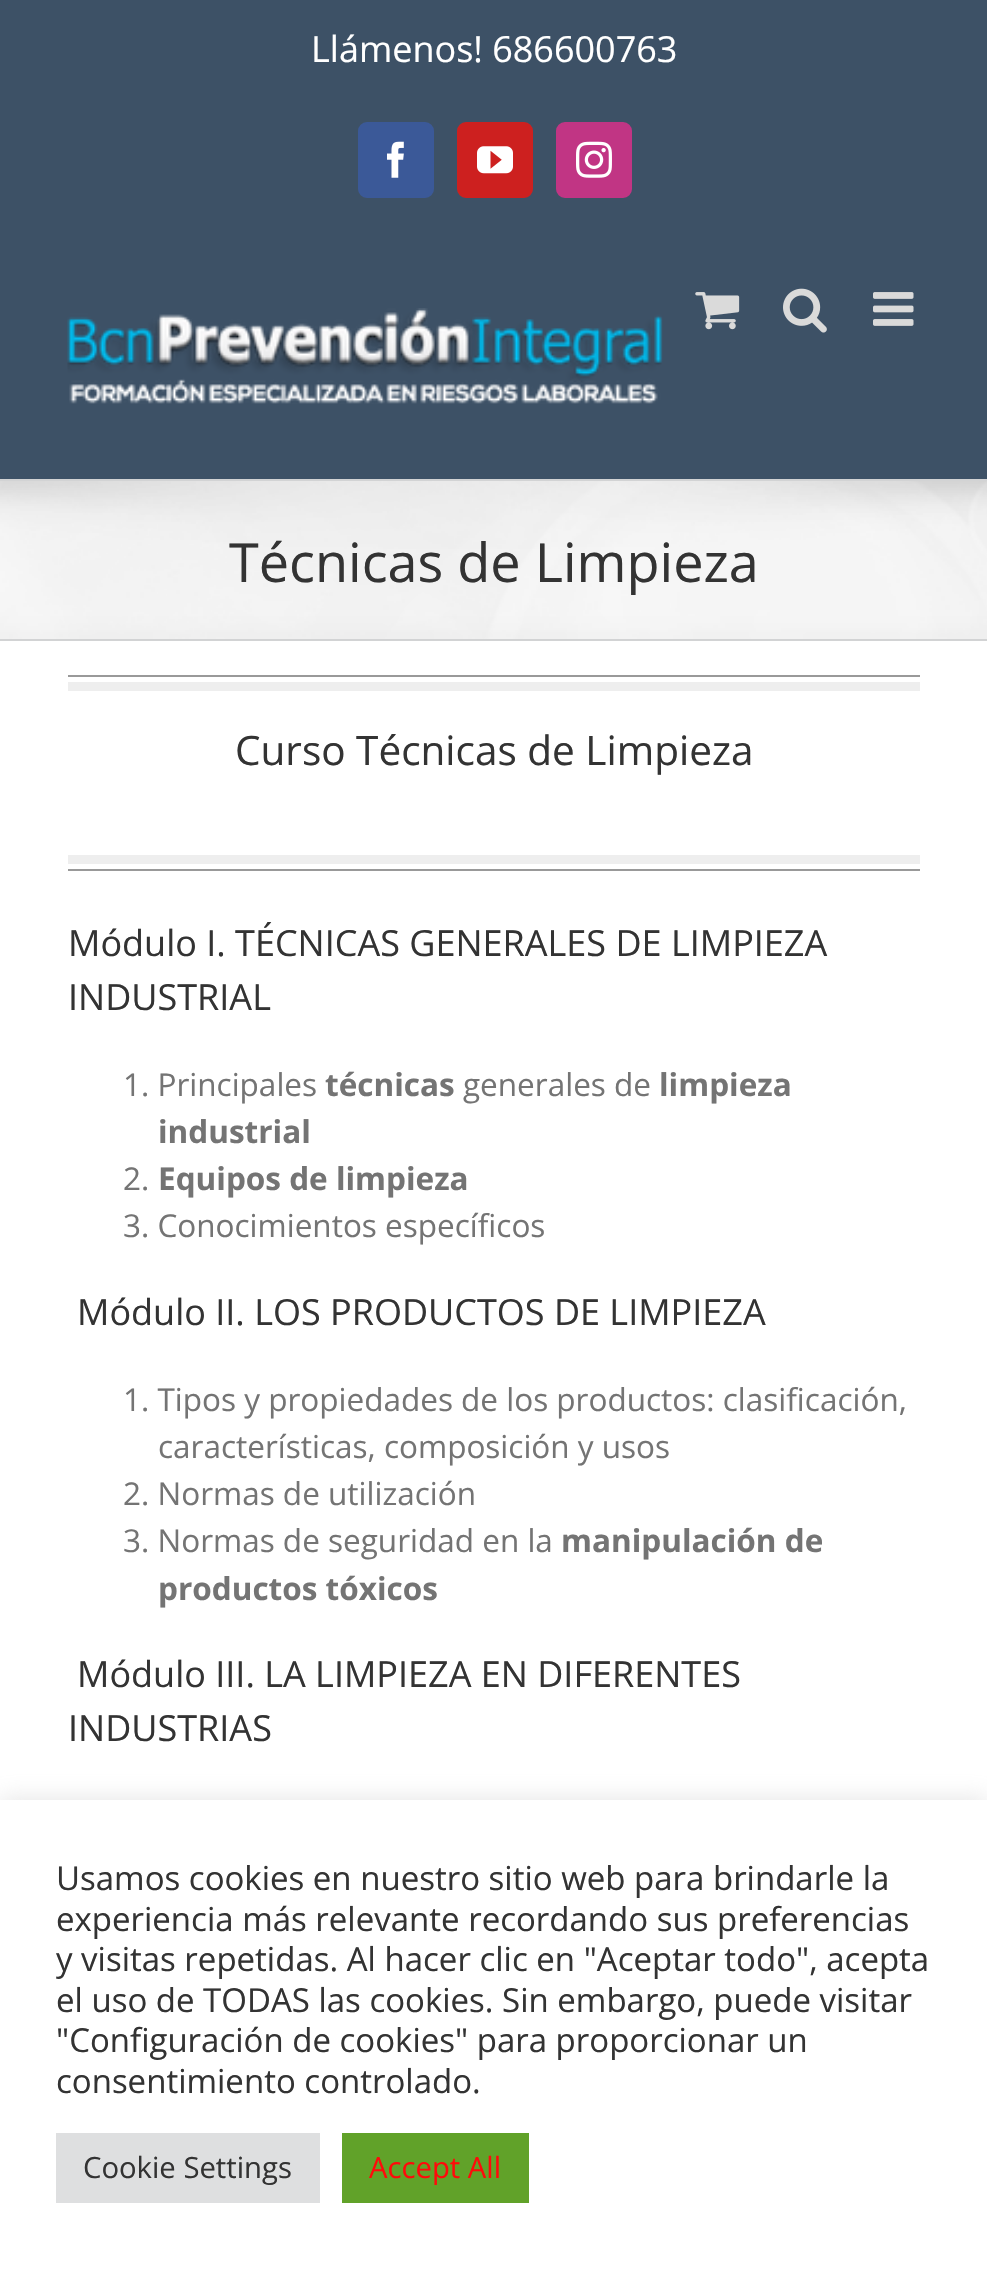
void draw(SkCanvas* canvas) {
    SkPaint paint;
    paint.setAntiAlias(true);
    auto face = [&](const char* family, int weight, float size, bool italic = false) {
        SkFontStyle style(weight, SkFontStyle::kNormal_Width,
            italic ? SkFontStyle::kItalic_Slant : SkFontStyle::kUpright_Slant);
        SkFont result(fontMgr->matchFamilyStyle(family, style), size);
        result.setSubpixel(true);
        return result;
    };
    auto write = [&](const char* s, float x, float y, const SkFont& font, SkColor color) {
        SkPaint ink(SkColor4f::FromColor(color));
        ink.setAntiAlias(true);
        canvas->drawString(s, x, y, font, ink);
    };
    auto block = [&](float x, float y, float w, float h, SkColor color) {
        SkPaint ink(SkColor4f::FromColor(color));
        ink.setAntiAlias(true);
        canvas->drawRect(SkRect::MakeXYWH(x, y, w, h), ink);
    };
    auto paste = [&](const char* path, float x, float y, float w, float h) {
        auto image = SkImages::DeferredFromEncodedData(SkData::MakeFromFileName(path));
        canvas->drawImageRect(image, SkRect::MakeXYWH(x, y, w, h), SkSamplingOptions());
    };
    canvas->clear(SK_ColorWHITE);
    block(0, 0, 987, 479, SkColorSetRGB(61, 81, 102));
    auto kFont1 = face("Open Sans", 400, 36);
    write("Llámenos! 686600763", 311, 62, kFont1, SK_ColorWHITE);
    paint.setColor(SkColorSetRGB(59, 89, 152));
    canvas->drawRoundRect(SkRect::MakeXYWH(359, 123, 74, 74), 8, 8, paint);
    paint.setStyle(SkPaint::kStroke_Style);
    paint.setStrokeWidth(2);
    canvas->drawRoundRect(SkRect::MakeXYWH(359, 123, 74, 74), 8, 8, paint);
    paste("pic1.png", 387, 141, 17, 37);
    paint.setStyle(SkPaint::kFill_Style);
    paint.setColor(SkColorSetRGB(205, 32, 31));
    canvas->drawRoundRect(SkRect::MakeXYWH(458, 123, 74, 74), 8, 8, paint);
    paint.setStyle(SkPaint::kStroke_Style);
    canvas->drawRoundRect(SkRect::MakeXYWH(458, 123, 74, 74), 8, 8, paint);
    paste("pic2.png", 477, 146, 36, 28);
    paint.setStyle(SkPaint::kFill_Style);
    paint.setColor(SkColorSetRGB(193, 53, 132));
    canvas->drawRoundRect(SkRect::MakeXYWH(557, 123, 74, 74), 8, 8, paint);
    paint.setStyle(SkPaint::kStroke_Style);
    canvas->drawRoundRect(SkRect::MakeXYWH(557, 123, 74, 74), 8, 8, paint);
    paste("pic3.png", 576, 141, 36, 37);
    paste("pic4.png", 67, 308, 596, 96);
    paste("pic5.png", 695, 292, 45, 38);
    paste("pic6.png", 783, 288, 44, 45);
    paste("pic7.png", 873, 292, 41, 34);
    block(0, 481, 987, 158, SkColorSetRGB(246, 246, 246));
    paste("pic8.png", 0, 481, 987, 158);
    block(0, 479, 987, 2, SkColorSetRGB(210, 211, 212));
    block(0, 639, 987, 2, SkColorSetRGB(210, 211, 212));
    auto kFont2 = face("Open Sans", 400, 54);
    write("Técnicas de Limpieza", 229, 582, kFont2, SkColorSetRGB(51, 51, 51));
    block(68, 675, 852, 2, SkColorSetRGB(153, 153, 153));
    block(68, 869, 852, 2, SkColorSetRGB(153, 153, 153));
    block(68, 682, 852, 9, SkColorSetRGB(238, 238, 238));
    block(68, 855, 852, 9, SkColorSetRGB(238, 238, 238));
    auto kFont3 = face("Open Sans", 400, 40.5f);
    write("Curso Técnicas de Limpieza", 235, 765, kFont3, SkColorSetRGB(51, 51, 51));
    write("Módulo I. TÉCNICAS GENERALES DE LIMPIEZA", 68, 956, kFont1, SkColorSetRGB(51, 51, 51));
    write("INDUSTRIAL", 68, 1010, kFont1, SkColorSetRGB(51, 51, 51));
    auto kFont4 = face("Open Sans", 400, 31.5f);
    write("1. Principales", 123, 1096, kFont4, SkColorSetRGB(116, 116, 116));
    auto kFont5 = face("Open Sans", 700, 31.5f);
    write("técnicas", 325, 1096, kFont5, SkColorSetRGB(116, 116, 116));
    write("generales de", 463, 1096, kFont4, SkColorSetRGB(116, 116, 116));
    write("limpieza", 659, 1096, kFont5, SkColorSetRGB(116, 116, 116));
    write("industrial", 158, 1143, kFont5, SkColorSetRGB(116, 116, 116));
    write("2.", 123, 1190, kFont4, SkColorSetRGB(116, 116, 116));
    write("Equipos de limpieza", 158, 1190, kFont5, SkColorSetRGB(116, 116, 116));
    write("3. Conocimientos específicos", 123, 1237, kFont4, SkColorSetRGB(116, 116, 116));
    write("Módulo II. LOS PRODUCTOS DE LIMPIEZA", 77, 1325, kFont1, SkColorSetRGB(51, 51, 51));
    write("1. Tipos y propiedades de los productos: clasificación,", 123, 1411, kFont4, SkColorSetRGB(116, 116, 116));
    write("características, composición y usos", 158, 1458, kFont4, SkColorSetRGB(116, 116, 116));
    write("2. Normas de utilización", 123, 1505, kFont4, SkColorSetRGB(116, 116, 116));
    write("3. Normas de seguridad en la", 123, 1552, kFont4, SkColorSetRGB(116, 116, 116));
    write("manipulación de", 561, 1552, kFont5, SkColorSetRGB(116, 116, 116));
    write("productos tóxicos", 158, 1600, kFont5, SkColorSetRGB(116, 116, 116));
    write("Módulo III. LA LIMPIEZA EN DIFERENTES", 77, 1687, kFont1, SkColorSetRGB(51, 51, 51));
    write("INDUSTRIAS", 68, 1741, kFont1, SkColorSetRGB(51, 51, 51));
    paint.setStyle(SkPaint::kFill_Style);
    paint.setColor(SkColorSetARGB(77, 172, 171, 171));
    paint.setMaskFilter(SkMaskFilter::MakeBlur(kNormal_SkBlurStyle, 11));
    canvas->drawRect(SkRect::MakeXYWH(0, 1798, 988, 470), paint);
    paint.setMaskFilter(nullptr);
    block(0, 1800, 987, 469, SK_ColorWHITE);
    auto kFont6 = face("Open Sans", 400, 33);
    write("Usamos cookies en nuestro sitio web para brindarle la", 56, 1890, kFont6, SkColorSetRGB(51, 51, 51));
    write("experiencia más relevante recordando sus preferencias", 56, 1931, kFont6, SkColorSetRGB(51, 51, 51));
    write("y visitas repetidas. Al hacer clic en \"Aceptar todo\", acepta", 56, 1971, kFont6, SkColorSetRGB(51, 51, 51));
    write("el uso de TODAS las cookies. Sin embargo, puede visitar", 56, 2012, kFont6, SkColorSetRGB(51, 51, 51));
    write("\"Configuración de cookies\" para proporcionar un", 56, 2052, kFont6, SkColorSetRGB(51, 51, 51));
    write("consentimiento controlado.", 56, 2093, kFont6, SkColorSetRGB(51, 51, 51));
    block(56, 2133, 264, 70, SkColorSetRGB(222, 223, 224));
    auto kFont7 = face("Open Sans", 400, 29.25f);
    write("Cookie Settings", 83, 2178, kFont7, SkColorSetRGB(51, 51, 51));
    block(342, 2133, 187, 70, SkColorSetRGB(97, 162, 41));
    write("Accept All", 369, 2178, kFont7, SkColorSetRGB(255, 10, 10));
}
